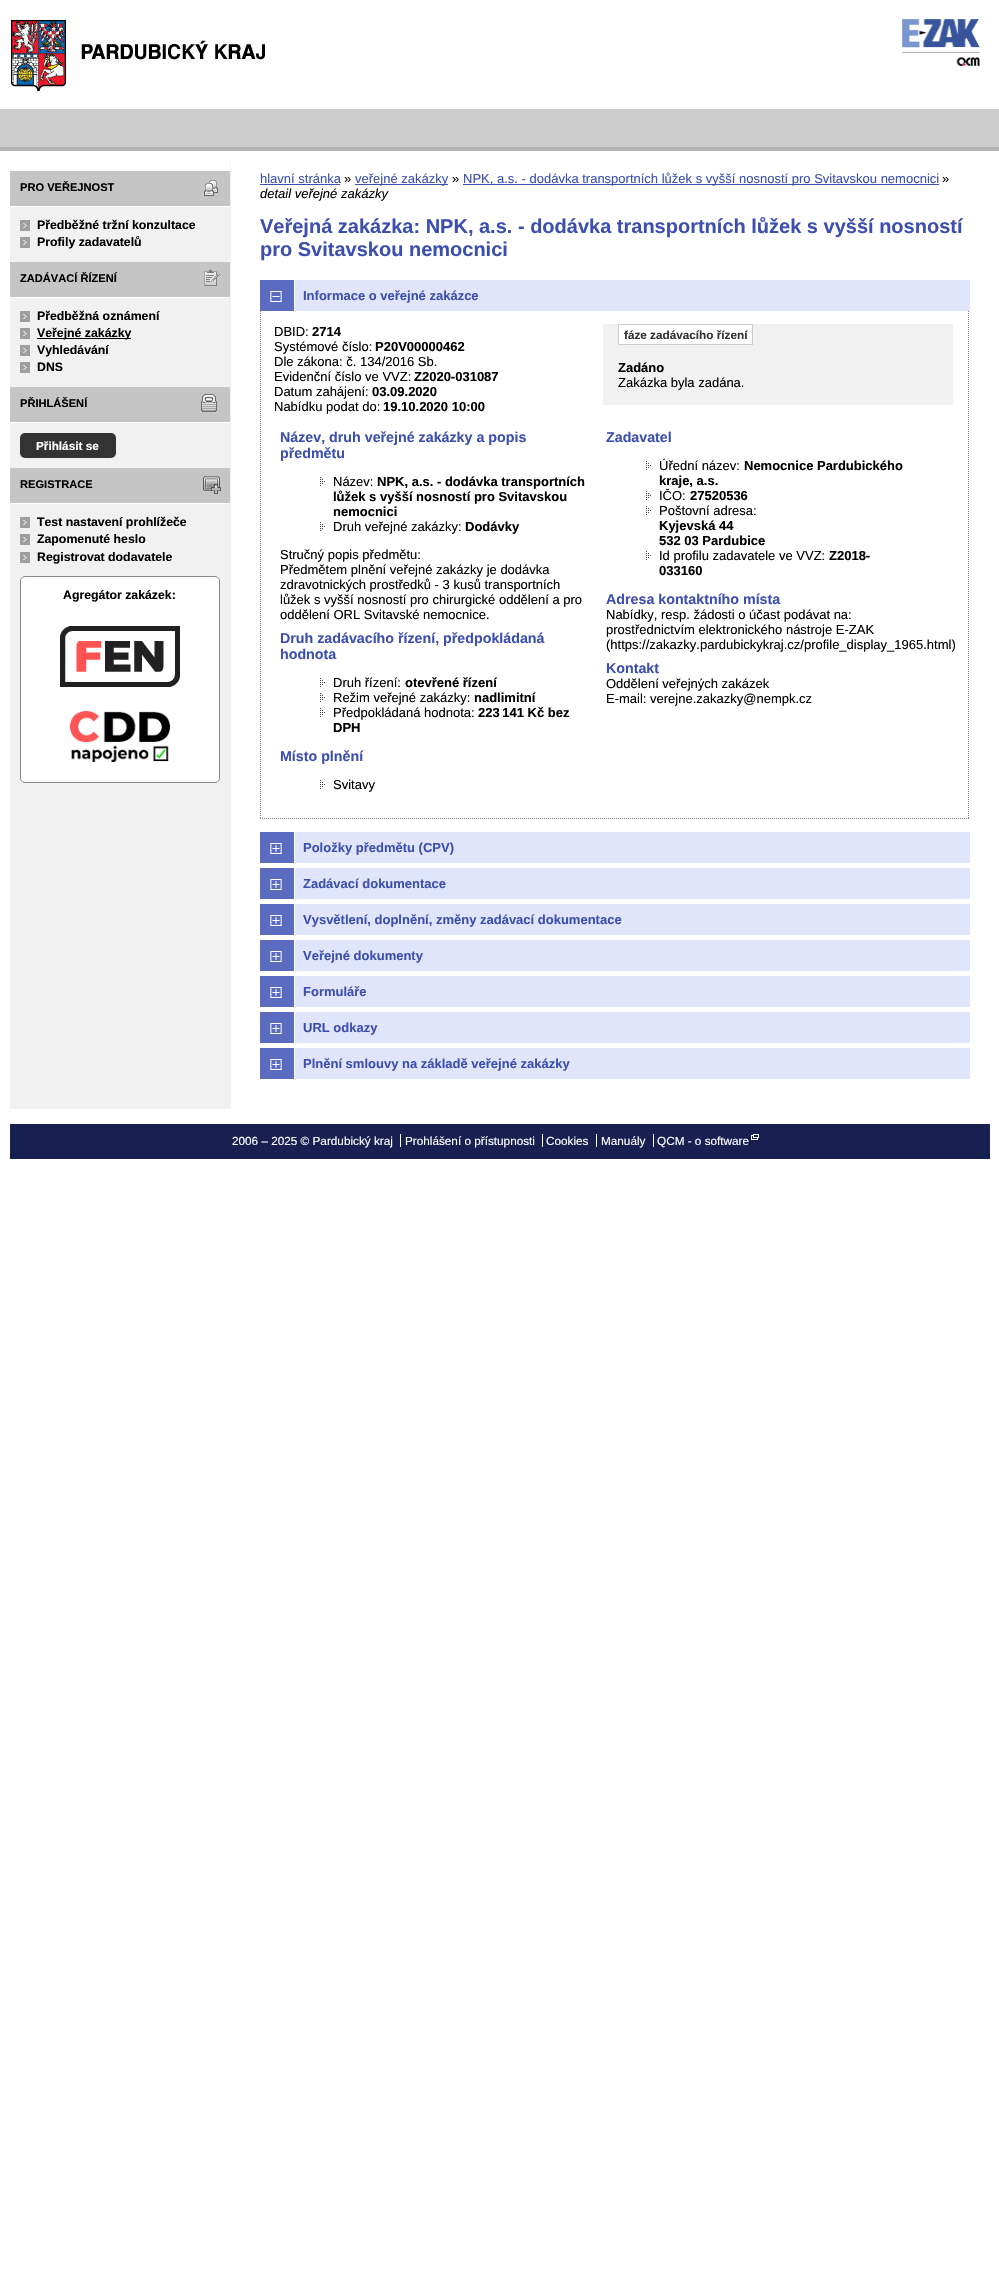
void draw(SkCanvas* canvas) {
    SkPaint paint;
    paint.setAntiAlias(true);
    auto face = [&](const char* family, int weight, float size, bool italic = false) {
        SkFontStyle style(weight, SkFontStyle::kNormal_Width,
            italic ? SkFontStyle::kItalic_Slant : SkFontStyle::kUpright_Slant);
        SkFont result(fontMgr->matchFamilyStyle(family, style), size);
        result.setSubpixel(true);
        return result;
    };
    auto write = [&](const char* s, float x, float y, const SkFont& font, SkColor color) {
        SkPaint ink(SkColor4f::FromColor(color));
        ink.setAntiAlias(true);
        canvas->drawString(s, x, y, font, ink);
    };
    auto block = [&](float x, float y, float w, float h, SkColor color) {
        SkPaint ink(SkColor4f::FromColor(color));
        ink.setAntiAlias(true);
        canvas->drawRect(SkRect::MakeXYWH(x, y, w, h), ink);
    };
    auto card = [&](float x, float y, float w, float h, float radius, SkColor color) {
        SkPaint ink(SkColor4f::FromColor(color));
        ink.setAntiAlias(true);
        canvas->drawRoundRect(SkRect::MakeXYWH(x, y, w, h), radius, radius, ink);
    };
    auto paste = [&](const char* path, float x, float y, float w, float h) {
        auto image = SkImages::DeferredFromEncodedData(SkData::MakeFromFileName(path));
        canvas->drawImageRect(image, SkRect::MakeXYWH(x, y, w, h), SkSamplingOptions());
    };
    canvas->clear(SK_ColorWHITE);
    paste("pic1.png", 0, 109, 999, 42);
    paste("pic2.png", 10, 16, 256, 80);
    paste("pic3.png", 902, 19, 78, 47);
    block(10, 161, 221, 948, SkColorSetRGB(241, 241, 241));
    block(10, 161, 220, 10, SK_ColorWHITE);
    block(10, 171, 220, 35, SkColorSetRGB(197, 197, 197));
    paste("pic4.png", 204, 180, 14, 16);
    block(10, 206, 220, 1, SK_ColorWHITE);
    auto kFont1 = face("Liberation Sans", 700, 11.1f);
    write("PRO VEŘEJNOST", 20, 191, kFont1, SK_ColorBLACK);
    paste("pic5.png", 20, 220, 10, 11);
    auto kFont2 = face("Liberation Sans", 700, 12.3f);
    write("Předběžné tržní konzultace", 37, 229, kFont2, SK_ColorBLACK);
    paste("pic5.png", 20, 237, 10, 11);
    write("Profily zadavatelů", 37, 246, kFont2, SK_ColorBLACK);
    block(10, 262, 220, 35, SkColorSetRGB(197, 197, 197));
    paste("pic6.png", 204, 270, 16, 16);
    block(10, 297, 220, 1, SK_ColorWHITE);
    write("ZADÁVACÍ ŘÍZENÍ", 20, 282, kFont1, SK_ColorBLACK);
    paste("pic5.png", 20, 311, 10, 11);
    write("Předběžná oznámení", 37, 320, kFont2, SK_ColorBLACK);
    paste("pic5.png", 20, 328, 10, 11);
    block(37, 338, 94, 1, SK_ColorBLACK);
    write("Veřejné zakázky", 37, 337, kFont2, SK_ColorBLACK);
    paste("pic5.png", 20, 345, 10, 11);
    write("Vyhledávání", 37, 354, kFont2, SK_ColorBLACK);
    paste("pic5.png", 20, 362, 10, 11);
    write("DNS", 37, 371, kFont2, SK_ColorBLACK);
    block(10, 387, 220, 35, SkColorSetRGB(197, 197, 197));
    paste("pic7.png", 201, 394, 16, 18);
    block(10, 422, 220, 1, SK_ColorWHITE);
    write("PŘIHLÁŠENÍ", 20, 407, kFont1, SK_ColorBLACK);
    card(20, 433, 96, 25, 5, SkColorSetRGB(51, 51, 51));
    auto kFont3 = face("Liberation Sans", 700, 11.75f);
    write("Přihlásit se", 36, 450, kFont3, SK_ColorWHITE);
    block(10, 468, 220, 35, SkColorSetRGB(197, 197, 197));
    paste("pic8.png", 203, 476, 18, 18);
    block(10, 503, 220, 1, SK_ColorWHITE);
    write("REGISTRACE", 20, 488, kFont1, SK_ColorBLACK);
    paste("pic5.png", 20, 517, 10, 11);
    write("Test nastavení prohlížeče", 37, 526, kFont2, SK_ColorBLACK);
    paste("pic5.png", 20, 534, 10, 11);
    write("Zapomenuté heslo", 37, 543, kFont2, SK_ColorBLACK);
    paste("pic5.png", 20, 552, 10, 11);
    write("Registrovat dodavatele", 37, 561, kFont2, SK_ColorBLACK);
    paint.setColor(SK_ColorWHITE);
    canvas->drawRoundRect(SkRect::MakeXYWH(20.5f, 576.5f, 199, 206), 4.5f, 4.5f, paint);
    paint.setStyle(SkPaint::kStroke_Style);
    paint.setStrokeWidth(1);
    paint.setColor(SkColorSetRGB(136, 136, 136));
    canvas->drawRoundRect(SkRect::MakeXYWH(20.5f, 576.5f, 199, 206), 4.5f, 4.5f, paint);
    write("Agregátor zakázek:", 63, 599, kFont2, SK_ColorBLACK);
    paste("pic9.png", 60, 626, 120, 61);
    paste("pic10.png", 70, 711, 100, 51);
    auto kFont4 = face("Liberation Sans", 400, 13);
    write("hlavní stránka", 260, 183, kFont4, SkColorSetRGB(61, 79, 174));
    block(260, 184, 80, 1, SkColorSetRGB(61, 79, 174));
    write("»", 344, 183, kFont4, SK_ColorBLACK);
    block(355, 184, 93, 1, SkColorSetRGB(61, 79, 174));
    write("veřejné zakázky", 355, 183, kFont4, SkColorSetRGB(61, 79, 174));
    write("»", 452, 183, kFont4, SK_ColorBLACK);
    block(463, 184, 476, 1, SkColorSetRGB(61, 79, 174));
    write("NPK, a.s. - dodávka transportních lůžek s vyšší nosností pro Svitavskou nemocnici", 463, 183, kFont4, SkColorSetRGB(61, 79, 174));
    write("»", 942, 183, kFont4, SK_ColorBLACK);
    auto kFont5 = face("Liberation Sans", 400, 13, true);
    write("detail veřejné zakázky", 260, 198, kFont5, SK_ColorBLACK);
    auto kFont6 = face("Liberation Sans", 700, 20);
    write("Veřejná zakázka: NPK, a.s. - dodávka transportních lůžek s vyšší nosností", 260, 233, kFont6, SkColorSetRGB(61, 79, 174));
    write("pro Svitavskou nemocnici", 260, 256, kFont6, SkColorSetRGB(61, 79, 174));
    paste("pic11.png", 260, 280, 710, 31);
    paste("pic12.png", 270, 280, 25, 31);
    auto kFont7 = face("Liberation Sans", 700, 13);
    write("Informace o veřejné zakázce", 303, 300, kFont7, SkColorSetRGB(61, 79, 174));
    paint.setColor(SkColorSetRGB(127, 127, 127));
    paint.setPathEffect(SkDashPathEffect::Make({{1, 1}}, 0));
    canvas->drawPath(SkPathBuilder().moveTo(968.5f, 311).lineTo(968.5f, 819).detach(), paint);
    paint.setPathEffect(nullptr);
    paint.setPathEffect(SkDashPathEffect::Make({{1, 1}}, 0));
    canvas->drawPath(SkPathBuilder().moveTo(260, 818.5f).lineTo(969, 818.5f).detach(), paint);
    paint.setPathEffect(nullptr);
    paint.setPathEffect(SkDashPathEffect::Make({{1, 1}}, 0));
    canvas->drawPath(SkPathBuilder().moveTo(260.5f, 311).lineTo(260.5f, 819).detach(), paint);
    paint.setPathEffect(nullptr);
    write("DBID:", 274, 336, kFont4, SK_ColorBLACK);
    write("2714", 312, 336, kFont7, SK_ColorBLACK);
    block(603, 324, 350, 81, SkColorSetRGB(241, 241, 241));
    paint.setStyle(SkPaint::kFill_Style);
    paint.setColor(SK_ColorWHITE);
    canvas->drawRect(SkRect::MakeXYWH(618.5f, 324.5f, 134, 20), paint);
    paint.setStyle(SkPaint::kStroke_Style);
    paint.setColor(SkColorSetRGB(204, 204, 204));
    canvas->drawRect(SkRect::MakeXYWH(618.5f, 324.5f, 134, 20), paint);
    write("fáze zadávacího řízení", 624, 339, kFont3, SkColorSetRGB(51, 51, 51));
    write("Zadáno", 618, 372, kFont7, SK_ColorBLACK);
    write("Zakázka byla zadána.", 618, 387, kFont4, SK_ColorBLACK);
    write("Systémové číslo:", 274, 351, kFont4, SK_ColorBLACK);
    write("P20V00000462", 375, 351, kFont7, SK_ColorBLACK);
    write("Dle zákona: č. 134/2016 Sb.", 274, 366, kFont4, SK_ColorBLACK);
    write("Evidenční číslo ve VVZ:", 274, 381, kFont4, SK_ColorBLACK);
    write("Z2020-031087", 414, 381, kFont7, SK_ColorBLACK);
    write("Datum zahájení:", 274, 396, kFont4, SK_ColorBLACK);
    write("03.09.2020", 372, 396, kFont7, SK_ColorBLACK);
    write("Nabídku podat do:", 274, 411, kFont4, SK_ColorBLACK);
    write("19.10.2020 10:00", 383, 411, kFont7, SK_ColorBLACK);
    auto kFont8 = face("Liberation Sans", 700, 14.25f);
    write("Název, druh veřejné zakázky a popis", 280, 442, kFont8, SkColorSetRGB(61, 79, 174));
    write("předmětu", 280, 458, kFont8, SkColorSetRGB(61, 79, 174));
    paste("pic13.png", 320, 477, 5, 9);
    write("Název:", 333, 486, kFont4, SK_ColorBLACK);
    write("NPK, a.s. - dodávka transportních", 377, 486, kFont7, SK_ColorBLACK);
    write("lůžek s vyšší nosností pro Svitavskou", 333, 501, kFont7, SK_ColorBLACK);
    write("nemocnici", 333, 516, kFont7, SK_ColorBLACK);
    paste("pic13.png", 320, 522, 5, 9);
    write("Druh veřejné zakázky:", 333, 531, kFont4, SK_ColorBLACK);
    write("Dodávky", 465, 531, kFont7, SK_ColorBLACK);
    write("Stručný popis předmětu:", 280, 559, kFont4, SK_ColorBLACK);
    write("Předmětem plnění veřejné zakázky je dodávka", 280, 574, kFont4, SK_ColorBLACK);
    write("zdravotnických prostředků - 3 kusů transportních", 280, 589, kFont4, SK_ColorBLACK);
    write("lůžek s vyšší nosností pro chirurgické oddělení a pro", 280, 604, kFont4, SK_ColorBLACK);
    write("oddělení ORL Svitavské nemocnice.", 280, 619, kFont4, SK_ColorBLACK);
    write("Druh zadávacího řízení, předpokládaná", 280, 643, kFont8, SkColorSetRGB(61, 79, 174));
    write("hodnota", 280, 659, kFont8, SkColorSetRGB(61, 79, 174));
    paste("pic13.png", 320, 678, 5, 9);
    write("Druh řízení:", 333, 687, kFont4, SK_ColorBLACK);
    write("otevřené řízení", 405, 687, kFont7, SK_ColorBLACK);
    paste("pic13.png", 320, 693, 5, 9);
    write("Režim veřejné zakázky:", 333, 702, kFont4, SK_ColorBLACK);
    write("nadlimitní", 474, 702, kFont7, SK_ColorBLACK);
    paste("pic13.png", 320, 708, 5, 9);
    write("Předpokládaná hodnota:", 333, 717, kFont4, SK_ColorBLACK);
    write("223 141 Kč bez", 478, 717, kFont7, SK_ColorBLACK);
    write("DPH", 333, 732, kFont7, SK_ColorBLACK);
    write("Místo plnění", 280, 761, kFont8, SkColorSetRGB(61, 79, 174));
    paste("pic13.png", 320, 780, 5, 9);
    write("Svitavy", 333, 789, kFont4, SK_ColorBLACK);
    write("Zadavatel", 606, 442, kFont8, SkColorSetRGB(61, 79, 174));
    paste("pic13.png", 646, 461, 5, 9);
    write("Úřední název:", 659, 470, kFont4, SK_ColorBLACK);
    write("Nemocnice Pardubického", 744, 470, kFont7, SK_ColorBLACK);
    write("kraje, a.s.", 659, 485, kFont7, SK_ColorBLACK);
    paste("pic13.png", 646, 491, 5, 9);
    write("IČO:", 659, 500, kFont4, SK_ColorBLACK);
    write("27520536", 690, 500, kFont7, SK_ColorBLACK);
    paste("pic13.png", 646, 506, 5, 9);
    write("Poštovní adresa:", 659, 515, kFont4, SK_ColorBLACK);
    write("Kyjevská 44", 659, 530, kFont7, SK_ColorBLACK);
    write("532 03 Pardubice", 659, 545, kFont7, SK_ColorBLACK);
    paste("pic13.png", 646, 551, 5, 9);
    write("Id profilu zadavatele ve VVZ:", 659, 560, kFont4, SK_ColorBLACK);
    write("Z2018-", 829, 560, kFont7, SK_ColorBLACK);
    write("033160", 659, 575, kFont7, SK_ColorBLACK);
    write("Adresa kontaktního místa", 606, 604, kFont8, SkColorSetRGB(61, 79, 174));
    write("Nabídky, resp. žádosti o účast podávat na:", 606, 619, kFont4, SK_ColorBLACK);
    write("prostřednictvím elektronického nástroje E-ZAK", 606, 634, kFont4, SK_ColorBLACK);
    write("(https://zakazky.pardubickykraj.cz/profile_display_1965.html)", 606, 649, kFont4, SK_ColorBLACK);
    write("Kontakt", 606, 673, kFont8, SkColorSetRGB(61, 79, 174));
    write("Oddělení veřejných zakázek", 606, 688, kFont4, SK_ColorBLACK);
    write("E-mail: verejne.zakazky@nempk.cz", 606, 703, kFont4, SK_ColorBLACK);
    paste("pic11.png", 260, 832, 710, 31);
    paste("pic14.png", 270, 832, 25, 31);
    write("Položky předmětu (CPV)", 303, 852, kFont7, SkColorSetRGB(61, 79, 174));
    paste("pic11.png", 260, 868, 710, 31);
    paste("pic14.png", 270, 868, 25, 31);
    write("Zadávací dokumentace", 303, 888, kFont7, SkColorSetRGB(61, 79, 174));
    paste("pic11.png", 260, 904, 710, 31);
    paste("pic14.png", 270, 904, 25, 31);
    write("Vysvětlení, doplnění, změny zadávací dokumentace", 303, 924, kFont7, SkColorSetRGB(61, 79, 174));
    paste("pic11.png", 260, 940, 710, 31);
    paste("pic14.png", 270, 940, 25, 31);
    write("Veřejné dokumenty", 303, 960, kFont7, SkColorSetRGB(61, 79, 174));
    paste("pic11.png", 260, 976, 710, 31);
    paste("pic14.png", 270, 976, 25, 31);
    write("Formuláře", 303, 996, kFont7, SkColorSetRGB(61, 79, 174));
    paste("pic11.png", 260, 1012, 710, 31);
    paste("pic14.png", 270, 1012, 25, 31);
    write("URL odkazy", 303, 1032, kFont7, SkColorSetRGB(61, 79, 174));
    paste("pic11.png", 260, 1048, 710, 31);
    paste("pic14.png", 270, 1048, 25, 31);
    write("Plnění smlouvy na základě veřejné zakázky", 303, 1068, kFont7, SkColorSetRGB(61, 79, 174));
    block(10, 1124, 980, 35, SkColorSetRGB(23, 32, 80));
    auto kFont9 = face("Liberation Sans", 400, 11.75f);
    write("2006 – 2025 © Pardubický kraj", 232, 1145, kFont9, SK_ColorWHITE);
    block(400, 1134, 1, 13, SK_ColorWHITE);
    write("Prohlášení o přístupnosti", 405, 1145, kFont9, SK_ColorWHITE);
    block(542, 1134, 1, 13, SK_ColorWHITE);
    write("Cookies", 546, 1145, kFont9, SK_ColorWHITE);
    block(596, 1134, 1, 13, SK_ColorWHITE);
    write("Manuály", 601, 1145, kFont9, SK_ColorWHITE);
    block(653, 1134, 1, 13, SK_ColorWHITE);
    write("QCM - o software", 657, 1145, kFont9, SK_ColorWHITE);
    paste("pic15.png", 751, 1134, 8, 6);
}
